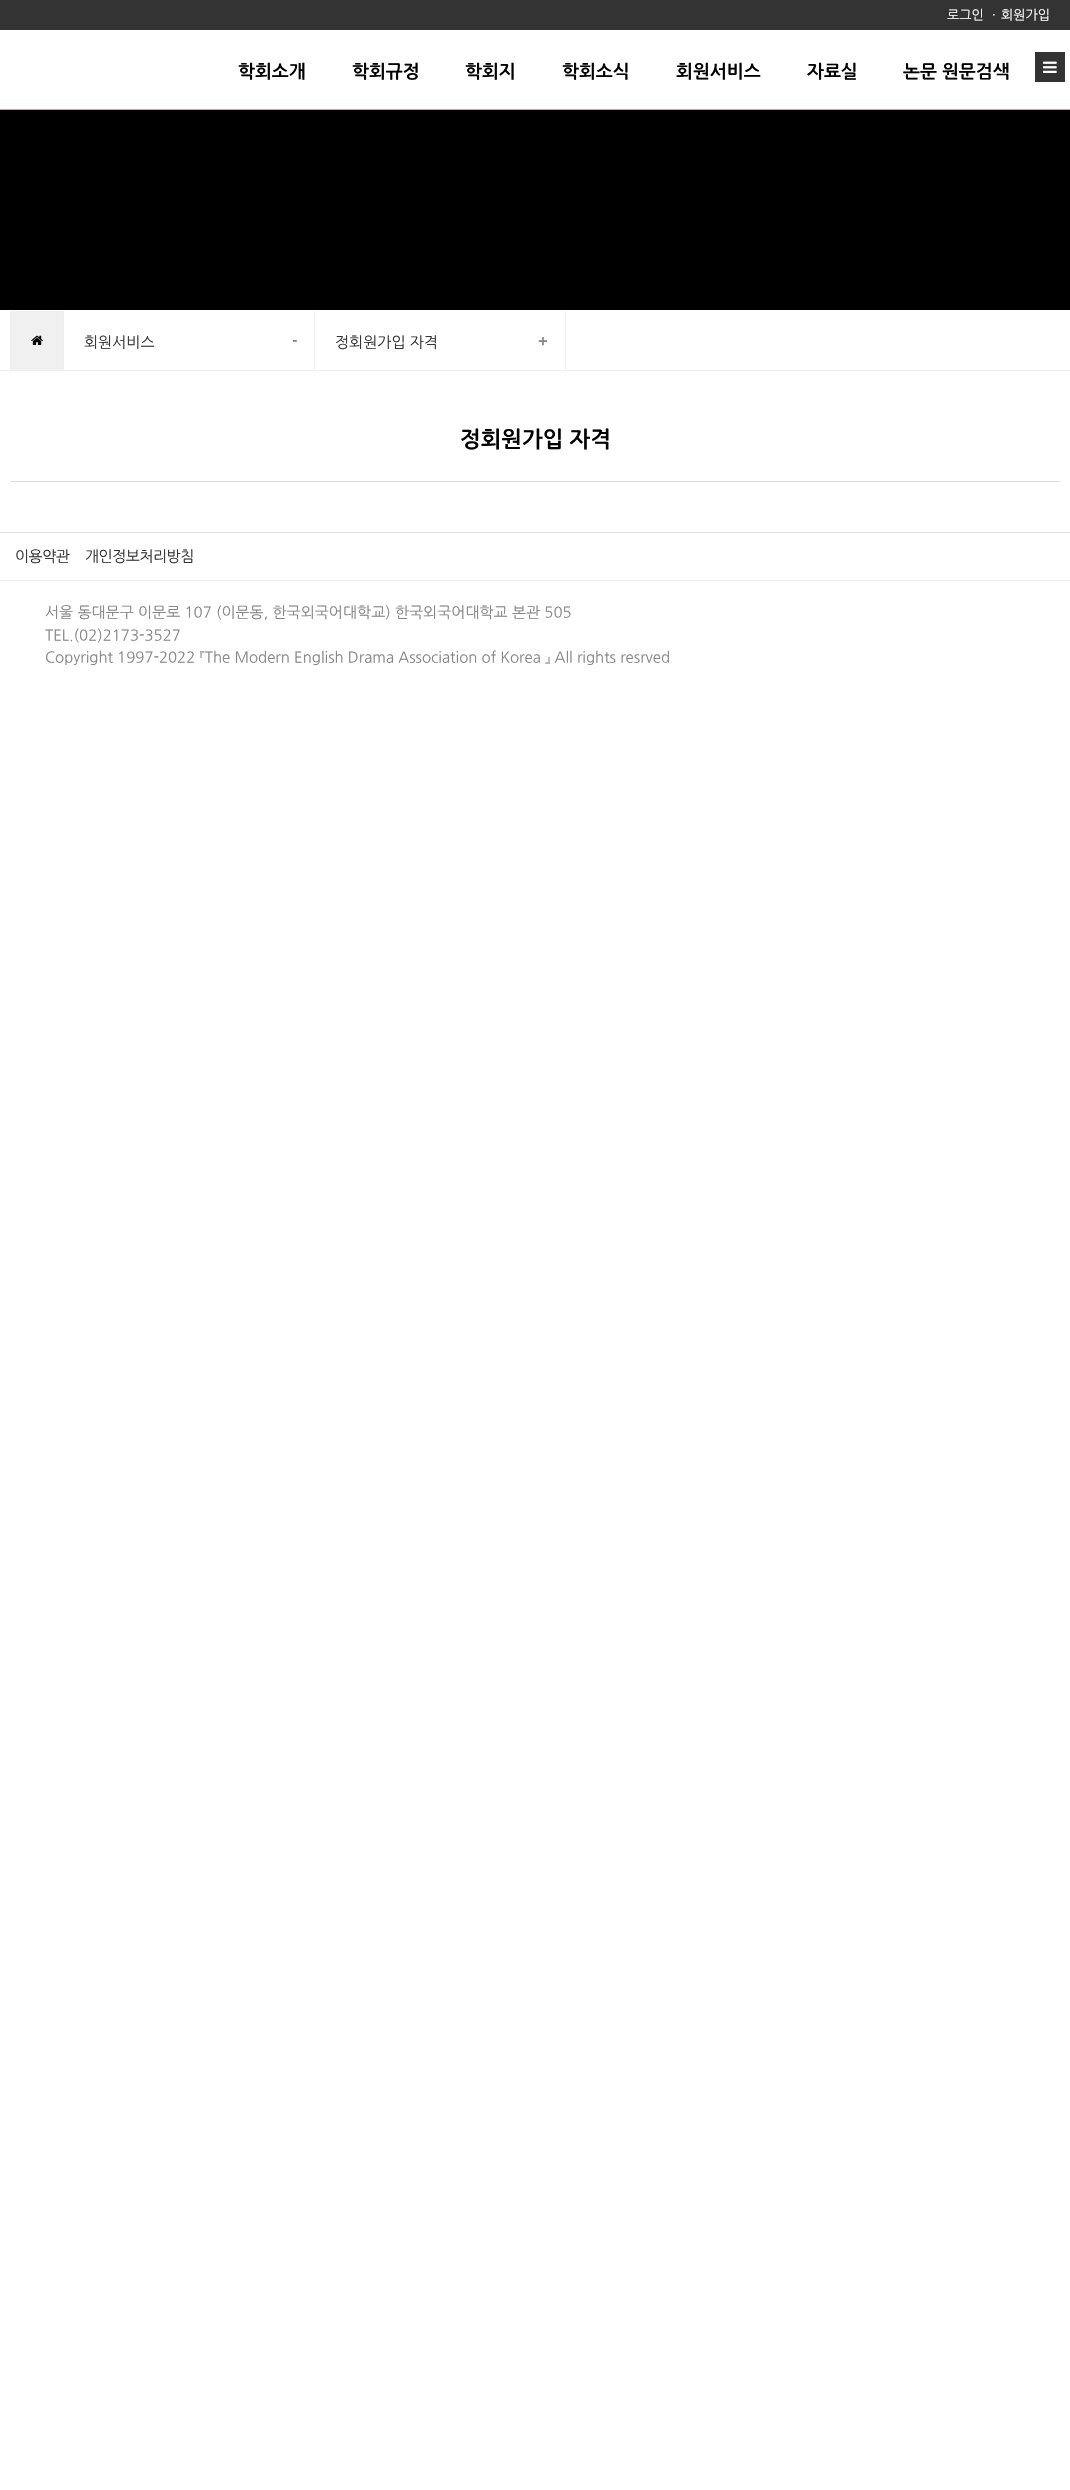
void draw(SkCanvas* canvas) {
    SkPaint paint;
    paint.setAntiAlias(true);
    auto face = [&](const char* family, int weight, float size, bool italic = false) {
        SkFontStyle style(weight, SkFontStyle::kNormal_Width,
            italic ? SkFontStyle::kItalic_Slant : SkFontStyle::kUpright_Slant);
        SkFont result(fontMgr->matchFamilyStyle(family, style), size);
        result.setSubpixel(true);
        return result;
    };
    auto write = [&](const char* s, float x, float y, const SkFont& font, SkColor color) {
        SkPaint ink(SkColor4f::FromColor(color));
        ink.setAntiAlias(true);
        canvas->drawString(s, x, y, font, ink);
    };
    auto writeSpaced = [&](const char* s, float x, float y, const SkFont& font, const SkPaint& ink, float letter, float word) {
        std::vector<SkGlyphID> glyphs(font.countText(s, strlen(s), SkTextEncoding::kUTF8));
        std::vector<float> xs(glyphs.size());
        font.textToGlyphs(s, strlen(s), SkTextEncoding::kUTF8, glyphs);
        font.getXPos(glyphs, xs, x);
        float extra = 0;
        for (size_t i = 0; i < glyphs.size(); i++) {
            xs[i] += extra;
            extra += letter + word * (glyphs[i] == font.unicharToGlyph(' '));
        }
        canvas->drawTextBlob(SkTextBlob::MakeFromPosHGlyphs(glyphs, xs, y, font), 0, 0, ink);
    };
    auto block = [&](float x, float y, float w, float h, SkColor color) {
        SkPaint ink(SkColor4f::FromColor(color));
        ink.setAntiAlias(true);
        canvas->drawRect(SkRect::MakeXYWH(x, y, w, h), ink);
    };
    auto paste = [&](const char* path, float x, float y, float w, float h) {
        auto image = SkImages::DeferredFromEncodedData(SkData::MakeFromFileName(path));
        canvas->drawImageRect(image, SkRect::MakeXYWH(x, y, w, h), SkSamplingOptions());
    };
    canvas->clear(SK_ColorWHITE);
    block(0, 0, 1070, 30, SkColorSetRGB(51, 51, 51));
    auto kFont1 = face("NanumGothic", 400, 13);
    write("로그인", 947, 19, kFont1, SK_ColorWHITE);
    write("·", 992, 19, kFont1, SK_ColorWHITE);
    write("회원가입", 1001, 19, kFont1, SK_ColorWHITE);
    block(1035, 52, 30, 30, SkColorSetRGB(51, 51, 51));
    paste("pic1.png", 1043, 61, 14, 12);
    block(0, 109, 1070, 1, SkColorSetRGB(208, 161, 154));
    auto kFont2 = face("NanumGothic", 700, 18);
    write("학회소개", 238, 77, kFont2, SK_ColorBLACK);
    write("학회규정", 352, 77, kFont2, SK_ColorBLACK);
    write("학회지", 465, 77, kFont2, SK_ColorBLACK);
    write("학회소식", 562, 77, kFont2, SK_ColorBLACK);
    write("회원서비스", 676, 77, kFont2, SK_ColorBLACK);
    write("자료실", 807, 77, kFont2, SK_ColorBLACK);
    write("논문 원문검색", 903, 77, kFont2, SK_ColorBLACK);
    block(0, 110, 1070, 200, SK_ColorBLACK);
    block(0, 370, 1070, 1, SkColorSetRGB(239, 239, 239));
    block(11, 311, 52, 59, SkColorSetRGB(240, 240, 240));
    block(63, 311, 1, 60, SkColorSetRGB(239, 239, 239));
    block(10, 311, 1, 60, SkColorSetRGB(239, 239, 239));
    paste("pic2.png", 31, 335, 12, 10);
    block(314, 311, 1, 60, SkColorSetRGB(239, 239, 239));
    auto kFont3 = face("NanumGothic", 400, 15);
    write("회원서비스", 84, 347, kFont3, SkColorSetRGB(51, 51, 51));
    auto kFont4 = face("NanumGothic", 700, 15);
    write("-", 292, 346, kFont4, SkColorSetRGB(133, 133, 133));
    block(565, 311, 1, 60, SkColorSetRGB(239, 239, 239));
    write("정회원가입 자격", 335, 347, kFont3, SkColorSetRGB(51, 51, 51));
    write("+", 538, 346, kFont4, SkColorSetRGB(133, 133, 133));
    block(10, 481, 1050, 1, SkColorSetRGB(221, 221, 221));
    auto kFont5 = face("NanumGothic", 700, 22);
    write("정회원가입 자격", 460, 446, kFont5, SK_ColorBLACK);
    block(0, 532, 1070, 1, SkColorSetRGB(227, 227, 227));
    paint.setColor(SkColorSetRGB(51, 51, 51));
    writeSpaced("이용약관", 15, 561, kFont3, paint, -0.5f, 0);
    writeSpaced("개인정보처리방침", 85, 561, kFont3, paint, -0.5f, 0);
    block(0, 580, 1070, 1, SkColorSetRGB(240, 240, 240));
    write("서울 동대문구 이문로 107 (이문동, 한국외국어대학교) 한국외국어대학교 본관 505", 45, 617, kFont3, SkColorSetRGB(133, 133, 133));
    write("TEL.(02)2173-3527", 45, 640, kFont3, SkColorSetRGB(133, 133, 133));
    write("Copyright 1997-2022 『The Modern English Drama Association of Korea 』 All rights resrved", 45, 662, kFont3, SkColorSetRGB(133, 133, 133));
}
